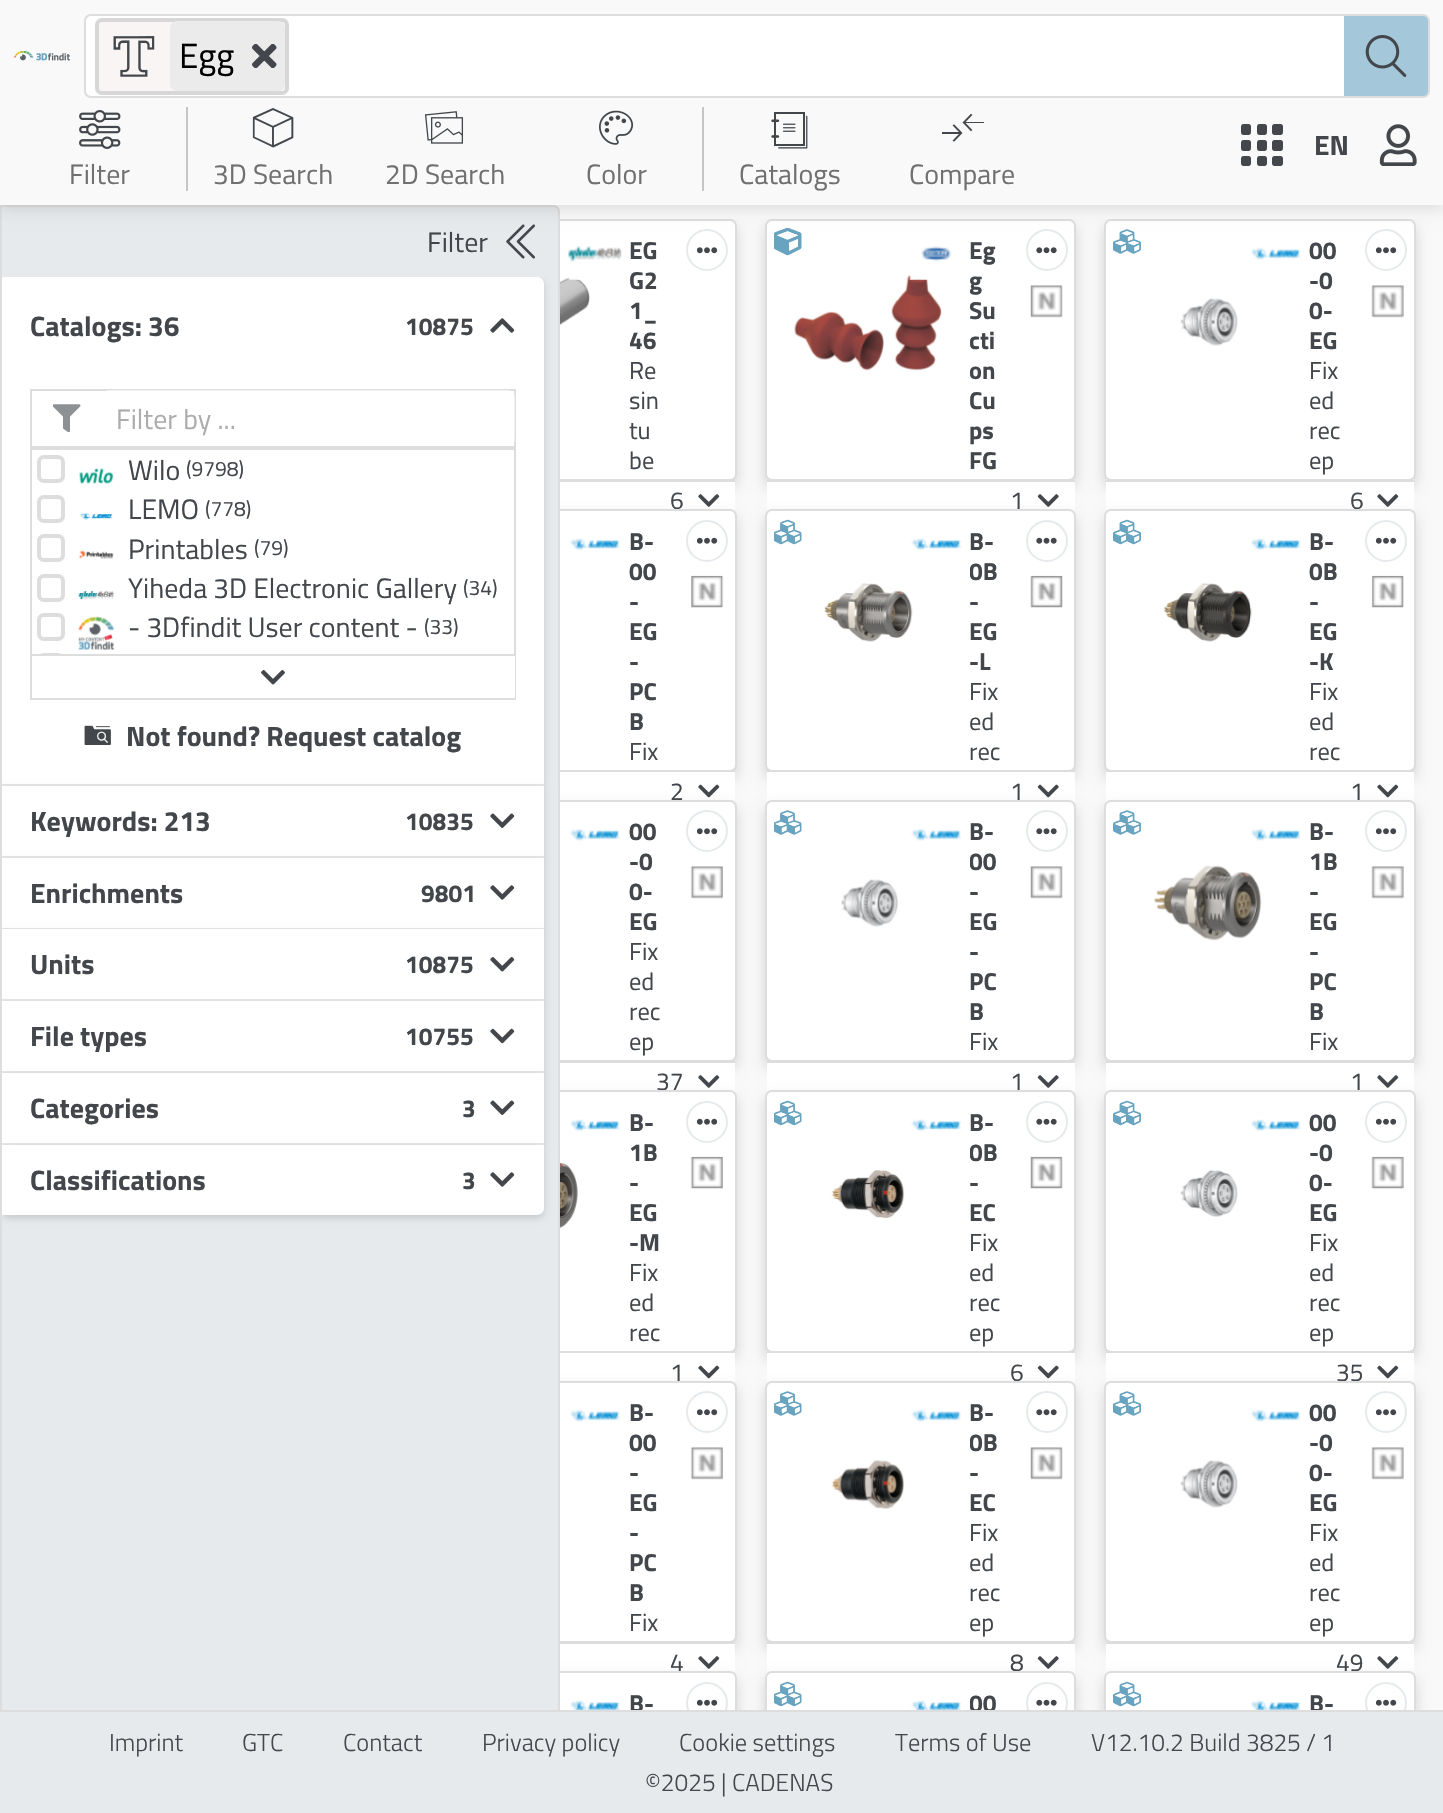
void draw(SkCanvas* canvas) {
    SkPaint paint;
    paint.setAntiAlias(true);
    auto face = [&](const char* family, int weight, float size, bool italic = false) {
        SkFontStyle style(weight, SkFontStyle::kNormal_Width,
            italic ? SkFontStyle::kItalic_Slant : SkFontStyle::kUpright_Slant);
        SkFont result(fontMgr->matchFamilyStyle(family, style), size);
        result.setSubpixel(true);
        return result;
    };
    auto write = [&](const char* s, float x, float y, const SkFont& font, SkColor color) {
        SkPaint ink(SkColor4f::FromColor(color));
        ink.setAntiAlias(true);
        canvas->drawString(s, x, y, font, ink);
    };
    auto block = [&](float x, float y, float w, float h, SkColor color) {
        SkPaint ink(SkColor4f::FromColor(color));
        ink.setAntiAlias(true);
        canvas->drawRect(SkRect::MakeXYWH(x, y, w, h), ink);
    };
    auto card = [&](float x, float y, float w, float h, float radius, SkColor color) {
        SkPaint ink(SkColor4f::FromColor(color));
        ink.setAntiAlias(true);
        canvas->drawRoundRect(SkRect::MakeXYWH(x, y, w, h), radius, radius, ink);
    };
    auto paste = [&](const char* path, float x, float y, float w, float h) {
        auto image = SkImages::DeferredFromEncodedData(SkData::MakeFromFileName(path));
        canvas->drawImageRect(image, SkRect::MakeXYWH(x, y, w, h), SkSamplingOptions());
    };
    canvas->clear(SkColorSetRGB(231, 234, 236));
    block(553, 205, 890, 1505, SkColorSetRGB(249, 249, 249));
    canvas->save();
    canvas->clipRect(SkRect::MakeXYWH(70, 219, 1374, 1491));
    paint.setColor(SkColorSetARGB(38, 0, 0, 0));
    paint.setMaskFilter(SkMaskFilter::MakeBlur(kNormal_SkBlurStyle, 7));
    canvas->drawRoundRect(SkRect::MakeXYWH(424, 226, 313, 262), 7, 7, paint);
    paint.setMaskFilter(nullptr);
    canvas->restore();
    paint.setColor(SK_ColorWHITE);
    canvas->drawRoundRect(SkRect::MakeXYWH(425, 220, 311, 260), 6, 6, paint);
    paint.setStyle(SkPaint::kStroke_Style);
    paint.setStrokeWidth(2);
    paint.setColor(SkColorSetRGB(221, 221, 221));
    canvas->drawRoundRect(SkRect::MakeXYWH(425, 220, 311, 260), 6, 6, paint);
    block(560, 482, 175, 29, SK_ColorWHITE);
    paste("pic30.png", 698, 494, 22, 13);
    paint.setStyle(SkPaint::kFill_Style);
    paint.setColor(SkColorSetARGB(38, 0, 0, 0));
    paint.setMaskFilter(SkMaskFilter::MakeBlur(kNormal_SkBlurStyle, 7));
    canvas->drawRoundRect(SkRect::MakeXYWH(424, 516, 313, 263), 7, 7, paint);
    paint.setMaskFilter(nullptr);
    auto kFont1 = face("Titillium Web", 400, 24.5f);
    write("6", 670, 509, kFont1, SkColorSetRGB(67, 71, 75));
    paint.setColor(SK_ColorWHITE);
    canvas->drawRoundRect(SkRect::MakeXYWH(425, 510, 311, 261), 6, 6, paint);
    paint.setStyle(SkPaint::kStroke_Style);
    paint.setColor(SkColorSetRGB(221, 221, 221));
    canvas->drawRoundRect(SkRect::MakeXYWH(425, 510, 311, 261), 6, 6, paint);
    block(560, 772, 175, 30, SK_ColorWHITE);
    paste("pic44.png", 698, 784, 22, 14);
    paint.setStyle(SkPaint::kFill_Style);
    paint.setColor(SkColorSetARGB(38, 0, 0, 0));
    paint.setMaskFilter(SkMaskFilter::MakeBlur(kNormal_SkBlurStyle, 7));
    canvas->drawRoundRect(SkRect::MakeXYWH(424, 807, 313, 262), 7, 7, paint);
    paint.setMaskFilter(nullptr);
    paint.setColor(SK_ColorWHITE);
    canvas->drawRoundRect(SkRect::MakeXYWH(425, 801, 311, 260), 6, 6, paint);
    paint.setStyle(SkPaint::kStroke_Style);
    paint.setColor(SkColorSetRGB(221, 221, 221));
    canvas->drawRoundRect(SkRect::MakeXYWH(425, 801, 311, 260), 6, 6, paint);
    block(560, 1063, 175, 29, SK_ColorWHITE);
    paste("pic30.png", 698, 1075, 22, 13);
    paint.setStyle(SkPaint::kFill_Style);
    paint.setColor(SkColorSetARGB(38, 0, 0, 0));
    paint.setMaskFilter(SkMaskFilter::MakeBlur(kNormal_SkBlurStyle, 7));
    canvas->drawRoundRect(SkRect::MakeXYWH(424, 1097, 313, 263), 7, 7, paint);
    paint.setMaskFilter(nullptr);
    write("37", 656, 1090, kFont1, SkColorSetRGB(67, 71, 75));
    paint.setColor(SK_ColorWHITE);
    canvas->drawRoundRect(SkRect::MakeXYWH(425, 1091, 311, 261), 6, 6, paint);
    paint.setStyle(SkPaint::kStroke_Style);
    paint.setColor(SkColorSetRGB(221, 221, 221));
    canvas->drawRoundRect(SkRect::MakeXYWH(425, 1091, 311, 261), 6, 6, paint);
    block(560, 1353, 175, 30, SK_ColorWHITE);
    paste("pic44.png", 698, 1365, 22, 14);
    paint.setStyle(SkPaint::kFill_Style);
    paint.setColor(SkColorSetARGB(38, 0, 0, 0));
    paint.setMaskFilter(SkMaskFilter::MakeBlur(kNormal_SkBlurStyle, 7));
    canvas->drawRoundRect(SkRect::MakeXYWH(424, 1388, 313, 262), 7, 7, paint);
    paint.setMaskFilter(nullptr);
    paint.setColor(SK_ColorWHITE);
    canvas->drawRoundRect(SkRect::MakeXYWH(425, 1382, 311, 260), 6, 6, paint);
    paint.setStyle(SkPaint::kStroke_Style);
    paint.setColor(SkColorSetRGB(221, 221, 221));
    canvas->drawRoundRect(SkRect::MakeXYWH(425, 1382, 311, 260), 6, 6, paint);
    block(560, 1644, 175, 29, SK_ColorWHITE);
    paste("pic30.png", 698, 1656, 22, 13);
    block(0, 1710, 1443, 2, SkColorSetRGB(221, 221, 221));
    canvas->save();
    canvas->clipRect(SkRect::MakeXYWH(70, 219, 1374, 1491));
    paint.setStyle(SkPaint::kFill_Style);
    paint.setColor(SkColorSetARGB(38, 0, 0, 0));
    paint.setMaskFilter(SkMaskFilter::MakeBlur(kNormal_SkBlurStyle, 7));
    canvas->drawRoundRect(SkRect::MakeXYWH(424, 1678, 313, 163), 7, 7, paint);
    paint.setMaskFilter(nullptr);
    canvas->restore();
    paint.setColor(SK_ColorWHITE);
    canvas->drawPath(SkPathBuilder().moveTo(431, 1671).lineTo(730, 1671).cubicTo(734, 1671, 737, 1674, 737, 1678).lineTo(737, 1710).lineTo(424, 1710).lineTo(424, 1678).cubicTo(424, 1674, 427, 1671, 431, 1671).close().detach(), paint);
    auto kFont2 = face("Titillium Web", 300, 24.5f);
    write("Cookie settings", 679, 1751, kFont2, SkColorSetRGB(67, 71, 75));
    write("©2025 | CADENAS", 645, 1791, kFont2, SkColorSetRGB(67, 71, 75));
    canvas->save();
    canvas->clipRect(SkRect::MakeXYWH(70, 219, 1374, 1491));
    paint.setStyle(SkPaint::kStroke_Style);
    paint.setColor(SkColorSetRGB(221, 221, 221));
    canvas->drawRoundRect(SkRect::MakeXYWH(425, 1672, 311, 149), 6, 6, paint);
    canvas->restore();
    paint.setStyle(SkPaint::kFill_Style);
    paint.setColor(SkColorSetRGB(231, 234, 236));
    canvas->drawPath(SkPathBuilder().moveTo(0, 205).lineTo(553, 205).cubicTo(557, 205, 560, 208, 560, 212).lineTo(560, 1710).lineTo(0, 1710).close().detach(), paint);
    write("Privacy policy", 482, 1751, kFont2, SkColorSetRGB(67, 71, 75));
    canvas->save();
    canvas->clipRect(SkRect::MakeXYWH(0, 205, 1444, 1505));
    paint.setStyle(SkPaint::kStroke_Style);
    paint.setColor(SkColorSetRGB(221, 221, 221));
    canvas->drawPath(SkPathBuilder().moveTo(1, 206).lineTo(553, 206).cubicTo(556.5f, 206, 559, 208.5f, 559, 212).lineTo(559, 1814).lineTo(1, 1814).close().detach(), paint);
    canvas->restore();
    paste("pic13.png", 506, 224, 29, 35);
    paint.setColor(SkColorSetRGB(231, 234, 236));
    canvas->drawCircle(707, 250, 20, paint);
    canvas->save();
    canvas->clipRect(SkRect::MakeXYWH(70, 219, 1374, 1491));
    paint.setStyle(SkPaint::kFill_Style);
    paint.setColor(SkColorSetARGB(38, 0, 0, 0));
    paint.setMaskFilter(SkMaskFilter::MakeBlur(kNormal_SkBlurStyle, 7));
    canvas->drawRoundRect(SkRect::MakeXYWH(765, 226, 311, 262), 7, 7, paint);
    paint.setMaskFilter(nullptr);
    canvas->restore();
    paint.setColor(SK_ColorWHITE);
    canvas->drawRoundRect(SkRect::MakeXYWH(766, 220, 309, 260), 6, 6, paint);
    paint.setStyle(SkPaint::kStroke_Style);
    paint.setColor(SkColorSetRGB(221, 221, 221));
    canvas->drawRoundRect(SkRect::MakeXYWH(766, 220, 309, 260), 6, 6, paint);
    paste("pic31.png", 774, 228, 28, 28);
    paint.setColor(SkColorSetRGB(231, 234, 236));
    canvas->drawCircle(1047, 250, 20, paint);
    canvas->save();
    canvas->clipRect(SkRect::MakeXYWH(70, 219, 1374, 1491));
    paint.setStyle(SkPaint::kFill_Style);
    paint.setColor(SkColorSetARGB(38, 0, 0, 0));
    paint.setMaskFilter(SkMaskFilter::MakeBlur(kNormal_SkBlurStyle, 7));
    canvas->drawRoundRect(SkRect::MakeXYWH(1104, 226, 312, 262), 7, 7, paint);
    paint.setMaskFilter(nullptr);
    canvas->restore();
    paint.setColor(SK_ColorWHITE);
    canvas->drawRoundRect(SkRect::MakeXYWH(1105, 220, 310, 260), 6, 6, paint);
    paint.setStyle(SkPaint::kStroke_Style);
    paint.setColor(SkColorSetRGB(221, 221, 221));
    canvas->drawRoundRect(SkRect::MakeXYWH(1105, 220, 310, 260), 6, 6, paint);
    paste("pic37.png", 1113, 229, 28, 25);
    paint.setColor(SkColorSetRGB(231, 234, 236));
    canvas->drawCircle(1386, 250, 20, paint);
    paint.setStyle(SkPaint::kFill_Style);
    paint.setColor(SkColorSetARGB(26, 0, 0, 0));
    paint.setMaskFilter(SkMaskFilter::MakeBlur(kNormal_SkBlurStyle, 7));
    canvas->drawRect(SkRect::MakeXYWH(0, 5, 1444, 205), paint);
    paint.setMaskFilter(nullptr);
    block(0, 0, 1443, 205, SkColorSetRGB(249, 249, 249));
    paste("pic1.png", 14, 51, 56, 10);
    paint.setColor(SK_ColorWHITE);
    canvas->drawRoundRect(SkRect::MakeXYWH(85, 15, 1344, 82), 6, 6, paint);
    paint.setStyle(SkPaint::kStroke_Style);
    paint.setColor(SkColorSetRGB(221, 221, 221));
    canvas->drawRoundRect(SkRect::MakeXYWH(85, 15, 1344, 82), 6, 6, paint);
    paint.setStyle(SkPaint::kFill_Style);
    paint.setColor(SkColorSetRGB(249, 245, 245));
    canvas->drawRoundRect(SkRect::MakeXYWH(97, 20, 190, 73), 5, 5, paint);
    paint.setStyle(SkPaint::kStroke_Style);
    paint.setStrokeWidth(4);
    paint.setColor(SkColorSetRGB(215, 215, 215));
    canvas->drawRoundRect(SkRect::MakeXYWH(97, 20, 190, 73), 5, 5, paint);
    paste("pic2.png", 113, 36, 42, 41);
    card(170, 21, 115, 70, 7, SkColorSetRGB(235, 235, 235));
    auto kFont3 = face("Titillium Web", 400, 35);
    write("Egg", 179, 68, kFont3, SK_ColorBLACK);
    paste("pic3.png", 252, 44, 25, 24);
    paint.setStyle(SkPaint::kFill_Style);
    paint.setColor(SkColorSetRGB(164, 200, 217));
    canvas->drawPath(SkPathBuilder().moveTo(1344, 16).lineTo(1423, 16).cubicTo(1426, 16, 1428, 18, 1428, 21).lineTo(1428, 91).cubicTo(1428, 94, 1426, 96, 1423, 96).lineTo(1344, 96).close().detach(), paint);
    paste("pic4.png", 1365, 35, 42, 42);
    paste("pic5.png", 1241, 124, 42, 42);
    auto kFont4 = face("Titillium Web", 700, 28);
    write("EN", 1314, 155, kFont4, SkColorSetRGB(67, 71, 75));
    paste("pic6.png", 1379, 124, 38, 42);
    paste("pic7.png", 79, 110, 42, 39);
    auto kFont5 = face("Titillium Web", 400, 28);
    write("Filter", 69, 184, kFont5, SkColorSetRGB(112, 112, 112));
    block(186, 107, 2, 84, SkColorSetRGB(198, 198, 198));
    paste("pic8.png", 252, 108, 42, 40);
    write("3D Search", 213, 184, kFont5, SkColorSetRGB(112, 112, 112));
    paste("pic9.png", 424, 111, 40, 33);
    write("2D Search", 385, 184, kFont5, SkColorSetRGB(112, 112, 112));
    paste("pic10.png", 599, 110, 35, 35);
    write("Color", 586, 184, kFont5, SkColorSetRGB(112, 112, 112));
    block(702, 107, 2, 84, SkColorSetRGB(198, 198, 198));
    paste("pic11.png", 771, 112, 37, 37);
    write("Catalogs", 739, 184, kFont5, SkColorSetRGB(112, 112, 112));
    paste("pic12.png", 942, 113, 42, 29);
    write("Compare", 909, 184, kFont5, SkColorSetRGB(112, 112, 112));
    write("Filter", 427, 252, kFont5, SkColorSetRGB(67, 71, 75));
    canvas->save();
    canvas->clipRect(SkRect::MakeXYWH(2, 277, 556, 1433));
    paint.setColor(SkColorSetARGB(38, 0, 0, 0));
    paint.setMaskFilter(SkMaskFilter::MakeBlur(kNormal_SkBlurStyle, 3.5f));
    canvas->drawRoundRect(SkRect::MakeXYWH(2, 280, 542, 509), 7, 7, paint);
    paint.setMaskFilter(nullptr);
    canvas->restore();
    paint.setColor(SK_ColorWHITE);
    canvas->drawPath(SkPathBuilder().moveTo(2, 277).lineTo(537, 277).cubicTo(541, 277, 544, 280, 544, 284).lineTo(544, 786).lineTo(2, 786).close().detach(), paint);
    block(2, 784, 542, 2, SkColorSetRGB(230, 230, 230));
    write("Catalogs: 36", 30, 336, kFont4, SkColorSetRGB(67, 71, 75));
    auto kFont6 = face("Titillium Web", 700, 24.5f);
    write("10 875", 405, 335, kFont6, SkColorSetRGB(67, 71, 75));
    paste("pic14.png", 490, 318, 25, 15);
    paint.setStyle(SkPaint::kStroke_Style);
    paint.setStrokeWidth(2);
    paint.setColor(SkColorSetRGB(221, 221, 221));
    canvas->drawRect(SkRect::MakeXYWH(31, 390, 484, 57), paint);
    paste("pic15.png", 53, 404, 28, 28);
    card(102, 390, 413, 56, 7, SkColorSetARGB(153, 255, 255, 255));
    write("Filter by ...", 116, 429, kFont5, SkColorSetRGB(172, 172, 172));
    canvas->drawRect(SkRect::MakeXYWH(31, 449, 484, 206), paint);
    paint.setStrokeWidth(4);
    canvas->drawRoundRect(SkRect::MakeXYWH(39, 457, 24, 24), 5, 5, paint);
    paste("pic16.png", 79, 468, 35, 16);
    write("Wilo", 128, 480, kFont5, SkColorSetRGB(67, 71, 75));
    auto kFont7 = face("Titillium Web", 400, 21);
    write("(9798)", 186, 476, kFont7, SkColorSetRGB(67, 71, 75));
    canvas->drawRoundRect(SkRect::MakeXYWH(39, 497, 24, 24), 5, 5, paint);
    paste("pic17.png", 80, 512, 33, 8);
    write("LEMO", 128, 519, kFont5, SkColorSetRGB(67, 71, 75));
    write("(778)", 205, 516, kFont7, SkColorSetRGB(67, 71, 75));
    canvas->drawRoundRect(SkRect::MakeXYWH(39, 536, 24, 24), 5, 5, paint);
    paste("pic18.png", 78, 550, 36, 9);
    write("Printables", 128, 559, kFont5, SkColorSetRGB(67, 71, 75));
    write("(79)", 254, 555, kFont7, SkColorSetRGB(67, 71, 75));
    canvas->drawRoundRect(SkRect::MakeXYWH(39, 576, 24, 24), 5, 5, paint);
    paste("pic19.png", 78, 590, 36, 10);
    write("Yiheda 3D Electronic Gallery", 128, 598, kFont5, SkColorSetRGB(67, 71, 75));
    write("(34)", 463, 595, kFont7, SkColorSetRGB(67, 71, 75));
    canvas->drawRoundRect(SkRect::MakeXYWH(39, 615, 24, 24), 5, 5, paint);
    paste("pic20.png", 78, 616, 36, 34);
    write("- 3Dfindit User content -", 128, 637, kFont5, SkColorSetRGB(67, 71, 75));
    write("(33)", 424, 634, kFont7, SkColorSetRGB(67, 71, 75));
    canvas->save();
    canvas->clipRect(SkRect::MakeXYWH(37, 450, 478, 205));
    canvas->drawRoundRect(SkRect::MakeXYWH(39, 655, 24, 24), 5, 5, paint);
    canvas->restore();
    block(515, 656, 1, 44, SkColorSetRGB(221, 221, 221));
    block(30, 698, 486, 2, SkColorSetRGB(221, 221, 221));
    block(30, 656, 2, 44, SkColorSetRGB(221, 221, 221));
    paste("pic21.png", 261, 670, 24, 15);
    paste("pic22.png", 84, 725, 27, 20);
    write("Not found? Request catalog", 126, 746, kFont4, SkColorSetRGB(67, 71, 75));
    canvas->save();
    canvas->clipRect(SkRect::MakeXYWH(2, 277, 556, 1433));
    paint.setStyle(SkPaint::kFill_Style);
    paint.setColor(SkColorSetARGB(38, 0, 0, 0));
    paint.setMaskFilter(SkMaskFilter::MakeBlur(kNormal_SkBlurStyle, 3.5f));
    canvas->drawRect(SkRect::MakeXYWH(2, 789, 542, 72), paint);
    paint.setMaskFilter(nullptr);
    canvas->restore();
    block(2, 786, 542, 70, SK_ColorWHITE);
    block(2, 856, 542, 2, SkColorSetRGB(230, 230, 230));
    write("Keywords: 213", 30, 831, kFont4, SkColorSetRGB(67, 71, 75));
    write("10 835", 405, 830, kFont6, SkColorSetRGB(67, 71, 75));
    paste("pic23.png", 490, 813, 25, 15);
    canvas->save();
    canvas->clipRect(SkRect::MakeXYWH(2, 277, 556, 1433));
    paint.setMaskFilter(SkMaskFilter::MakeBlur(kNormal_SkBlurStyle, 3.5f));
    canvas->drawRect(SkRect::MakeXYWH(2, 861, 542, 72), paint);
    paint.setMaskFilter(nullptr);
    canvas->restore();
    block(2, 858, 542, 71, SK_ColorWHITE);
    block(2, 928, 542, 1, SkColorSetARGB(26, 0, 0, 0));
    write("Enrichments", 30, 903, kFont4, SkColorSetRGB(67, 71, 75));
    write("9801", 421, 902, kFont6, SkColorSetRGB(67, 71, 75));
    paste("pic24.png", 490, 885, 25, 15);
    canvas->save();
    canvas->clipRect(SkRect::MakeXYWH(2, 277, 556, 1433));
    paint.setMaskFilter(SkMaskFilter::MakeBlur(kNormal_SkBlurStyle, 3.5f));
    canvas->drawRect(SkRect::MakeXYWH(2, 933, 542, 72), paint);
    paint.setMaskFilter(nullptr);
    canvas->restore();
    block(2, 929, 542, 70, SK_ColorWHITE);
    block(2, 999, 542, 2, SkColorSetRGB(230, 230, 230));
    write("Units", 30, 974, kFont4, SkColorSetRGB(67, 71, 75));
    write("10 875", 405, 973, kFont6, SkColorSetRGB(67, 71, 75));
    paste("pic25.png", 490, 957, 25, 15);
    canvas->save();
    canvas->clipRect(SkRect::MakeXYWH(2, 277, 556, 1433));
    paint.setMaskFilter(SkMaskFilter::MakeBlur(kNormal_SkBlurStyle, 3.5f));
    canvas->drawRect(SkRect::MakeXYWH(2, 1005, 542, 71), paint);
    paint.setMaskFilter(nullptr);
    canvas->restore();
    block(2, 1001, 542, 70, SK_ColorWHITE);
    block(2, 1071, 542, 2, SkColorSetRGB(230, 230, 230));
    write("File types", 30, 1046, kFont4, SkColorSetRGB(67, 71, 75));
    write("10 755", 405, 1045, kFont6, SkColorSetRGB(67, 71, 75));
    paste("pic26.png", 490, 1028, 25, 16);
    canvas->save();
    canvas->clipRect(SkRect::MakeXYWH(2, 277, 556, 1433));
    paint.setMaskFilter(SkMaskFilter::MakeBlur(kNormal_SkBlurStyle, 3.5f));
    canvas->drawRect(SkRect::MakeXYWH(2, 1076, 542, 72), paint);
    paint.setMaskFilter(nullptr);
    canvas->restore();
    block(2, 1073, 542, 70, SK_ColorWHITE);
    block(2, 1143, 542, 2, SkColorSetRGB(230, 230, 230));
    write("Categories", 30, 1118, kFont4, SkColorSetRGB(67, 71, 75));
    write("3", 462, 1117, kFont6, SkColorSetRGB(67, 71, 75));
    paste("pic23.png", 490, 1100, 25, 15);
    canvas->save();
    canvas->clipRect(SkRect::MakeXYWH(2, 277, 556, 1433));
    paint.setMaskFilter(SkMaskFilter::MakeBlur(kNormal_SkBlurStyle, 3.5f));
    canvas->drawRoundRect(SkRect::MakeXYWH(2, 1148, 542, 70), 7, 7, paint);
    paint.setMaskFilter(nullptr);
    canvas->restore();
    paint.setColor(SK_ColorWHITE);
    canvas->drawPath(SkPathBuilder().moveTo(2, 1145).lineTo(544, 1145).lineTo(544, 1208).cubicTo(544, 1212, 541, 1215, 537, 1215).lineTo(2, 1215).close().detach(), paint);
    write("Classifications", 30, 1190, kFont4, SkColorSetRGB(67, 71, 75));
    write("3", 462, 1189, kFont6, SkColorSetRGB(67, 71, 75));
    paste("pic24.png", 490, 1172, 25, 15);
    paste("pic28.png", 560, 277, 30, 105);
    paste("pic27.png", 568, 246, 54, 34);
    write("EG", 629, 259, kFont6, SkColorSetRGB(67, 71, 75));
    write("G2", 629, 289, kFont6, SkColorSetRGB(67, 71, 75));
    write("1_", 629, 319, kFont6, SkColorSetRGB(67, 71, 75));
    write("46", 629, 349, kFont6, SkColorSetRGB(67, 71, 75));
    write("Re", 629, 379, kFont1, SkColorSetRGB(67, 71, 75));
    write("sin", 629, 409, kFont1, SkColorSetRGB(67, 71, 75));
    write("tu", 629, 439, kFont1, SkColorSetRGB(67, 71, 75));
    write("be", 629, 469, kFont1, SkColorSetRGB(67, 71, 75));
    paste("pic29.png", 697, 247, 21, 7);
    block(560, 480, 175, 2, SkColorSetRGB(221, 221, 221));
    paste("pic33.png", 794, 273, 148, 98);
    paste("pic32.png", 909, 246, 43, 34);
    write("Eg", 969, 259, kFont6, SkColorSetRGB(67, 71, 75));
    canvas->save();
    canvas->clipRect(SkRect::MakeXYWH(970, 235, 33, 659));
    write("g", 969, 289, kFont6, SkColorSetRGB(67, 71, 75));
    write("Su", 969, 319, kFont6, SkColorSetRGB(67, 71, 75));
    write("cti", 969, 349, kFont6, SkColorSetRGB(67, 71, 75));
    write("on", 969, 379, kFont6, SkColorSetRGB(67, 71, 75));
    write("Cu", 969, 409, kFont6, SkColorSetRGB(67, 71, 75));
    canvas->restore();
    write("ps", 969, 439, kFont6, SkColorSetRGB(67, 71, 75));
    write("FG", 969, 469, kFont6, SkColorSetRGB(67, 71, 75));
    paste("pic34.png", 1030, 285, 33, 33);
    paste("pic35.png", 1036, 247, 21, 7);
    block(767, 482, 308, 31, SK_ColorWHITE);
    block(767, 480, 308, 2, SkColorSetRGB(221, 221, 221));
    write("1", 1010, 509, kFont1, SkColorSetRGB(67, 71, 75));
    paste("pic36.png", 1037, 494, 22, 13);
    paste("pic38.png", 1251, 247, 50, 13);
    paste("pic39.png", 1180, 298, 58, 48);
    write("00", 1309, 259, kFont6, SkColorSetRGB(67, 71, 75));
    write("-0", 1309, 289, kFont6, SkColorSetRGB(67, 71, 75));
    write("0-", 1309, 319, kFont6, SkColorSetRGB(67, 71, 75));
    write("EG", 1309, 349, kFont6, SkColorSetRGB(67, 71, 75));
    write("Fix", 1309, 379, kFont1, SkColorSetRGB(67, 71, 75));
    write("ed", 1309, 409, kFont1, SkColorSetRGB(67, 71, 75));
    write("rec", 1309, 439, kFont1, SkColorSetRGB(67, 71, 75));
    write("ep", 1309, 469, kFont1, SkColorSetRGB(67, 71, 75));
    paste("pic40.png", 1371, 285, 33, 33);
    paste("pic29.png", 1376, 247, 21, 7);
    block(1106, 482, 308, 29, SK_ColorWHITE);
    block(1106, 480, 308, 2, SkColorSetRGB(221, 221, 221));
    write("6", 1350, 509, kFont1, SkColorSetRGB(67, 71, 75));
    paste("pic30.png", 1377, 494, 22, 13);
    paste("pic41.png", 570, 538, 50, 12);
    write("B-", 629, 550, kFont6, SkColorSetRGB(67, 71, 75));
    write("00", 629, 580, kFont6, SkColorSetRGB(67, 71, 75));
    write("-", 629, 610, kFont6, SkColorSetRGB(67, 71, 75));
    write("EG", 629, 640, kFont6, SkColorSetRGB(67, 71, 75));
    write("-", 629, 670, kFont6, SkColorSetRGB(67, 71, 75));
    write("PC", 629, 700, kFont6, SkColorSetRGB(67, 71, 75));
    write("B", 629, 730, kFont6, SkColorSetRGB(67, 71, 75));
    write("Fix", 629, 760, kFont1, SkColorSetRGB(67, 71, 75));
    paste("pic42.png", 691, 575, 33, 33);
    paint.setStyle(SkPaint::kStroke_Style);
    paint.setStrokeWidth(2);
    paint.setColor(SkColorSetRGB(231, 234, 236));
    canvas->drawCircle(707, 541, 20, paint);
    paste("pic43.png", 697, 537, 21, 7);
    block(731, 770, 4, 2, SkColorSetRGB(221, 221, 221));
    write("2", 670, 800, kFont1, SkColorSetRGB(67, 71, 75));
    paint.setStyle(SkPaint::kFill_Style);
    paint.setColor(SkColorSetARGB(38, 0, 0, 0));
    paint.setMaskFilter(SkMaskFilter::MakeBlur(kNormal_SkBlurStyle, 7));
    canvas->drawRoundRect(SkRect::MakeXYWH(765, 516, 311, 263), 7, 7, paint);
    paint.setMaskFilter(nullptr);
    paint.setColor(SK_ColorWHITE);
    canvas->drawRoundRect(SkRect::MakeXYWH(766, 510, 309, 261), 6, 6, paint);
    paint.setStyle(SkPaint::kStroke_Style);
    paint.setColor(SkColorSetRGB(221, 221, 221));
    canvas->drawRoundRect(SkRect::MakeXYWH(766, 510, 309, 261), 6, 6, paint);
    paste("pic45.png", 774, 519, 28, 26);
    paste("pic46.png", 911, 538, 51, 12);
    paste("pic47.png", 824, 583, 89, 59);
    write("B-", 969, 550, kFont6, SkColorSetRGB(67, 71, 75));
    canvas->save();
    canvas->clipRect(SkRect::MakeXYWH(970, 525, 33, 450));
    write("0B", 969, 580, kFont6, SkColorSetRGB(67, 71, 75));
    canvas->restore();
    write("-", 969, 610, kFont6, SkColorSetRGB(67, 71, 75));
    write("EG", 969, 640, kFont6, SkColorSetRGB(67, 71, 75));
    write("-L", 969, 670, kFont6, SkColorSetRGB(67, 71, 75));
    write("Fix", 969, 700, kFont1, SkColorSetRGB(67, 71, 75));
    canvas->save();
    canvas->clipRect(SkRect::MakeXYWH(970, 525, 33, 450));
    write("ed", 969, 730, kFont1, SkColorSetRGB(67, 71, 75));
    canvas->restore();
    write("rec", 969, 760, kFont1, SkColorSetRGB(67, 71, 75));
    paste("pic48.png", 1030, 575, 33, 33);
    paint.setColor(SkColorSetRGB(231, 234, 236));
    canvas->drawCircle(1047, 541, 20, paint);
    paste("pic49.png", 1036, 537, 21, 7);
    block(767, 772, 308, 32, SK_ColorWHITE);
    block(767, 770, 308, 2, SkColorSetRGB(221, 221, 221));
    write("1", 1010, 800, kFont1, SkColorSetRGB(67, 71, 75));
    paste("pic50.png", 1037, 784, 22, 14);
    paint.setStyle(SkPaint::kFill_Style);
    paint.setColor(SkColorSetARGB(38, 0, 0, 0));
    paint.setMaskFilter(SkMaskFilter::MakeBlur(kNormal_SkBlurStyle, 7));
    canvas->drawRoundRect(SkRect::MakeXYWH(1104, 516, 312, 263), 7, 7, paint);
    paint.setMaskFilter(nullptr);
    paint.setColor(SK_ColorWHITE);
    canvas->drawRoundRect(SkRect::MakeXYWH(1105, 510, 310, 261), 6, 6, paint);
    paint.setStyle(SkPaint::kStroke_Style);
    paint.setColor(SkColorSetRGB(221, 221, 221));
    canvas->drawRoundRect(SkRect::MakeXYWH(1105, 510, 310, 261), 6, 6, paint);
    paste("pic51.png", 1113, 519, 28, 26);
    paste("pic52.png", 1251, 538, 50, 12);
    paste("pic53.png", 1163, 583, 89, 59);
    write("B-", 1309, 550, kFont6, SkColorSetRGB(67, 71, 75));
    write("0B", 1309, 580, kFont6, SkColorSetRGB(67, 71, 75));
    write("-", 1309, 610, kFont6, SkColorSetRGB(67, 71, 75));
    write("EG", 1309, 640, kFont6, SkColorSetRGB(67, 71, 75));
    write("-K", 1309, 670, kFont6, SkColorSetRGB(67, 71, 75));
    write("Fix", 1309, 700, kFont1, SkColorSetRGB(67, 71, 75));
    write("ed", 1309, 730, kFont1, SkColorSetRGB(67, 71, 75));
    write("rec", 1309, 760, kFont1, SkColorSetRGB(67, 71, 75));
    paste("pic54.png", 1371, 575, 33, 33);
    paint.setColor(SkColorSetRGB(231, 234, 236));
    canvas->drawCircle(1386, 541, 20, paint);
    paste("pic43.png", 1376, 537, 21, 7);
    block(1106, 772, 308, 30, SK_ColorWHITE);
    block(1106, 770, 308, 2, SkColorSetRGB(221, 221, 221));
    write("1", 1350, 800, kFont1, SkColorSetRGB(67, 71, 75));
    paste("pic44.png", 1377, 784, 22, 14);
    paste("pic55.png", 570, 828, 50, 13);
    write("00", 629, 840, kFont6, SkColorSetRGB(67, 71, 75));
    write("-0", 629, 870, kFont6, SkColorSetRGB(67, 71, 75));
    write("0-", 629, 900, kFont6, SkColorSetRGB(67, 71, 75));
    write("EG", 629, 930, kFont6, SkColorSetRGB(67, 71, 75));
    write("Fix", 629, 960, kFont1, SkColorSetRGB(67, 71, 75));
    write("ed", 629, 990, kFont1, SkColorSetRGB(67, 71, 75));
    write("rec", 629, 1020, kFont1, SkColorSetRGB(67, 71, 75));
    write("ep", 629, 1050, kFont1, SkColorSetRGB(67, 71, 75));
    paste("pic56.png", 690, 866, 33, 33);
    canvas->drawCircle(707, 831, 20, paint);
    paste("pic29.png", 697, 828, 21, 7);
    block(560, 1061, 175, 2, SkColorSetRGB(221, 221, 221));
    paint.setStyle(SkPaint::kFill_Style);
    paint.setColor(SkColorSetARGB(38, 0, 0, 0));
    paint.setMaskFilter(SkMaskFilter::MakeBlur(kNormal_SkBlurStyle, 7));
    canvas->drawRoundRect(SkRect::MakeXYWH(765, 807, 311, 262), 7, 7, paint);
    paint.setMaskFilter(nullptr);
    paint.setColor(SK_ColorWHITE);
    canvas->drawRoundRect(SkRect::MakeXYWH(766, 801, 309, 260), 6, 6, paint);
    paint.setStyle(SkPaint::kStroke_Style);
    paint.setColor(SkColorSetRGB(221, 221, 221));
    canvas->drawRoundRect(SkRect::MakeXYWH(766, 801, 309, 260), 6, 6, paint);
    paste("pic57.png", 774, 810, 28, 25);
    paste("pic58.png", 911, 828, 50, 13);
    paste("pic59.png", 841, 879, 57, 48);
    write("B-", 969, 840, kFont6, SkColorSetRGB(67, 71, 75));
    canvas->save();
    canvas->clipRect(SkRect::MakeXYWH(970, 816, 33, 511));
    write("00", 969, 870, kFont6, SkColorSetRGB(67, 71, 75));
    canvas->restore();
    write("-", 969, 900, kFont6, SkColorSetRGB(67, 71, 75));
    write("EG", 969, 930, kFont6, SkColorSetRGB(67, 71, 75));
    write("-", 969, 960, kFont6, SkColorSetRGB(67, 71, 75));
    write("PC", 969, 990, kFont6, SkColorSetRGB(67, 71, 75));
    write("B", 969, 1020, kFont6, SkColorSetRGB(67, 71, 75));
    write("Fix", 969, 1050, kFont1, SkColorSetRGB(67, 71, 75));
    paste("pic34.png", 1030, 866, 33, 33);
    paint.setColor(SkColorSetRGB(231, 234, 236));
    canvas->drawCircle(1047, 831, 20, paint);
    paste("pic35.png", 1036, 828, 21, 7);
    block(767, 1063, 308, 31, SK_ColorWHITE);
    block(767, 1061, 308, 2, SkColorSetRGB(221, 221, 221));
    write("1", 1010, 1090, kFont1, SkColorSetRGB(67, 71, 75));
    paste("pic36.png", 1037, 1075, 22, 13);
    paint.setStyle(SkPaint::kFill_Style);
    paint.setColor(SkColorSetARGB(38, 0, 0, 0));
    paint.setMaskFilter(SkMaskFilter::MakeBlur(kNormal_SkBlurStyle, 7));
    canvas->drawRoundRect(SkRect::MakeXYWH(1104, 807, 312, 262), 7, 7, paint);
    paint.setMaskFilter(nullptr);
    paint.setColor(SK_ColorWHITE);
    canvas->drawRoundRect(SkRect::MakeXYWH(1105, 801, 310, 260), 6, 6, paint);
    paint.setStyle(SkPaint::kStroke_Style);
    paint.setColor(SkColorSetRGB(221, 221, 221));
    canvas->drawRoundRect(SkRect::MakeXYWH(1105, 801, 310, 260), 6, 6, paint);
    paste("pic37.png", 1113, 810, 28, 25);
    paste("pic38.png", 1251, 828, 50, 13);
    paste("pic60.png", 1154, 865, 108, 76);
    write("B-", 1309, 840, kFont6, SkColorSetRGB(67, 71, 75));
    write("1B", 1309, 870, kFont6, SkColorSetRGB(67, 71, 75));
    write("-", 1309, 900, kFont6, SkColorSetRGB(67, 71, 75));
    write("EG", 1309, 930, kFont6, SkColorSetRGB(67, 71, 75));
    write("-", 1309, 960, kFont6, SkColorSetRGB(67, 71, 75));
    write("PC", 1309, 990, kFont6, SkColorSetRGB(67, 71, 75));
    write("B", 1309, 1020, kFont6, SkColorSetRGB(67, 71, 75));
    write("Fix", 1309, 1050, kFont1, SkColorSetRGB(67, 71, 75));
    paste("pic40.png", 1371, 866, 33, 33);
    paint.setColor(SkColorSetRGB(231, 234, 236));
    canvas->drawCircle(1386, 831, 20, paint);
    paste("pic29.png", 1376, 828, 21, 7);
    block(1106, 1063, 308, 29, SK_ColorWHITE);
    block(1106, 1061, 308, 2, SkColorSetRGB(221, 221, 221));
    write("1", 1350, 1090, kFont1, SkColorSetRGB(67, 71, 75));
    paste("pic30.png", 1377, 1075, 22, 13);
    paste("pic61.png", 570, 1119, 50, 12);
    paste("pic62.png", 560, 1156, 18, 75);
    write("B-", 629, 1131, kFont6, SkColorSetRGB(67, 71, 75));
    write("1B", 629, 1161, kFont6, SkColorSetRGB(67, 71, 75));
    write("-", 629, 1191, kFont6, SkColorSetRGB(67, 71, 75));
    write("EG", 629, 1221, kFont6, SkColorSetRGB(67, 71, 75));
    write("-M", 629, 1251, kFont6, SkColorSetRGB(67, 71, 75));
    write("Fix", 629, 1281, kFont1, SkColorSetRGB(67, 71, 75));
    write("ed", 629, 1311, kFont1, SkColorSetRGB(67, 71, 75));
    write("rec", 629, 1341, kFont1, SkColorSetRGB(67, 71, 75));
    paste("pic63.png", 690, 1156, 33, 33);
    canvas->drawCircle(707, 1122, 20, paint);
    paste("pic43.png", 697, 1118, 21, 7);
    block(731, 1351, 4, 2, SkColorSetRGB(221, 221, 221));
    write("1", 670, 1381, kFont1, SkColorSetRGB(67, 71, 75));
    paint.setStyle(SkPaint::kFill_Style);
    paint.setColor(SkColorSetARGB(38, 0, 0, 0));
    paint.setMaskFilter(SkMaskFilter::MakeBlur(kNormal_SkBlurStyle, 7));
    canvas->drawRoundRect(SkRect::MakeXYWH(765, 1097, 311, 263), 7, 7, paint);
    paint.setMaskFilter(nullptr);
    paint.setColor(SK_ColorWHITE);
    canvas->drawRoundRect(SkRect::MakeXYWH(766, 1091, 309, 261), 6, 6, paint);
    paint.setStyle(SkPaint::kStroke_Style);
    paint.setColor(SkColorSetRGB(221, 221, 221));
    canvas->drawRoundRect(SkRect::MakeXYWH(766, 1091, 309, 261), 6, 6, paint);
    paste("pic45.png", 774, 1100, 28, 26);
    paste("pic64.png", 911, 1119, 50, 12);
    paste("pic65.png", 831, 1170, 74, 48);
    write("B-", 969, 1131, kFont6, SkColorSetRGB(67, 71, 75));
    canvas->save();
    canvas->clipRect(SkRect::MakeXYWH(970, 1106, 33, 420));
    write("0B", 969, 1161, kFont6, SkColorSetRGB(67, 71, 75));
    canvas->restore();
    write("-", 969, 1191, kFont6, SkColorSetRGB(67, 71, 75));
    write("EC", 969, 1221, kFont6, SkColorSetRGB(67, 71, 75));
    write("Fix", 969, 1251, kFont1, SkColorSetRGB(67, 71, 75));
    canvas->save();
    canvas->clipRect(SkRect::MakeXYWH(970, 1106, 33, 420));
    write("ed", 969, 1281, kFont1, SkColorSetRGB(67, 71, 75));
    canvas->restore();
    write("rec", 969, 1311, kFont1, SkColorSetRGB(67, 71, 75));
    canvas->save();
    canvas->clipRect(SkRect::MakeXYWH(970, 1106, 33, 420));
    write("ep", 969, 1341, kFont1, SkColorSetRGB(67, 71, 75));
    canvas->restore();
    paste("pic66.png", 1030, 1156, 33, 33);
    paint.setColor(SkColorSetRGB(231, 234, 236));
    canvas->drawCircle(1047, 1122, 20, paint);
    paste("pic49.png", 1036, 1118, 21, 7);
    block(767, 1353, 308, 32, SK_ColorWHITE);
    block(767, 1351, 308, 2, SkColorSetRGB(221, 221, 221));
    write("6", 1010, 1381, kFont1, SkColorSetRGB(67, 71, 75));
    paste("pic50.png", 1037, 1365, 22, 14);
    paint.setStyle(SkPaint::kFill_Style);
    paint.setColor(SkColorSetARGB(38, 0, 0, 0));
    paint.setMaskFilter(SkMaskFilter::MakeBlur(kNormal_SkBlurStyle, 7));
    canvas->drawRoundRect(SkRect::MakeXYWH(1104, 1097, 312, 263), 7, 7, paint);
    paint.setMaskFilter(nullptr);
    paint.setColor(SK_ColorWHITE);
    canvas->drawRoundRect(SkRect::MakeXYWH(1105, 1091, 310, 261), 6, 6, paint);
    paint.setStyle(SkPaint::kStroke_Style);
    paint.setColor(SkColorSetRGB(221, 221, 221));
    canvas->drawRoundRect(SkRect::MakeXYWH(1105, 1091, 310, 261), 6, 6, paint);
    paste("pic51.png", 1113, 1100, 28, 26);
    paste("pic67.png", 1251, 1119, 50, 12);
    paste("pic68.png", 1180, 1170, 58, 47);
    write("00", 1309, 1131, kFont6, SkColorSetRGB(67, 71, 75));
    write("-0", 1309, 1161, kFont6, SkColorSetRGB(67, 71, 75));
    write("0-", 1309, 1191, kFont6, SkColorSetRGB(67, 71, 75));
    write("EG", 1309, 1221, kFont6, SkColorSetRGB(67, 71, 75));
    write("Fix", 1309, 1251, kFont1, SkColorSetRGB(67, 71, 75));
    write("ed", 1309, 1281, kFont1, SkColorSetRGB(67, 71, 75));
    write("rec", 1309, 1311, kFont1, SkColorSetRGB(67, 71, 75));
    write("ep", 1309, 1341, kFont1, SkColorSetRGB(67, 71, 75));
    paste("pic69.png", 1371, 1156, 33, 33);
    paint.setColor(SkColorSetRGB(231, 234, 236));
    canvas->drawCircle(1386, 1122, 20, paint);
    paste("pic43.png", 1376, 1118, 21, 7);
    block(1106, 1353, 308, 30, SK_ColorWHITE);
    block(1106, 1351, 308, 2, SkColorSetRGB(221, 221, 221));
    write("35", 1336, 1381, kFont1, SkColorSetRGB(67, 71, 75));
    paste("pic44.png", 1377, 1365, 22, 14);
    paste("pic55.png", 570, 1409, 50, 13);
    write("B-", 629, 1421, kFont6, SkColorSetRGB(67, 71, 75));
    write("00", 629, 1451, kFont6, SkColorSetRGB(67, 71, 75));
    write("-", 629, 1481, kFont6, SkColorSetRGB(67, 71, 75));
    write("EG", 629, 1511, kFont6, SkColorSetRGB(67, 71, 75));
    write("-", 629, 1541, kFont6, SkColorSetRGB(67, 71, 75));
    write("PC", 629, 1571, kFont6, SkColorSetRGB(67, 71, 75));
    write("B", 629, 1601, kFont6, SkColorSetRGB(67, 71, 75));
    write("Fix", 629, 1631, kFont1, SkColorSetRGB(67, 71, 75));
    paste("pic56.png", 690, 1447, 33, 33);
    canvas->drawCircle(707, 1412, 20, paint);
    paste("pic29.png", 697, 1409, 21, 7);
    block(560, 1642, 175, 2, SkColorSetRGB(221, 221, 221));
    write("4", 670, 1671, kFont1, SkColorSetRGB(67, 71, 75));
    paint.setStyle(SkPaint::kFill_Style);
    paint.setColor(SkColorSetARGB(38, 0, 0, 0));
    paint.setMaskFilter(SkMaskFilter::MakeBlur(kNormal_SkBlurStyle, 7));
    canvas->drawRoundRect(SkRect::MakeXYWH(765, 1388, 311, 262), 7, 7, paint);
    paint.setMaskFilter(nullptr);
    paint.setColor(SK_ColorWHITE);
    canvas->drawRoundRect(SkRect::MakeXYWH(766, 1382, 309, 260), 6, 6, paint);
    paint.setStyle(SkPaint::kStroke_Style);
    paint.setColor(SkColorSetRGB(221, 221, 221));
    canvas->drawRoundRect(SkRect::MakeXYWH(766, 1382, 309, 260), 6, 6, paint);
    paste("pic57.png", 774, 1391, 28, 25);
    paste("pic58.png", 911, 1409, 50, 13);
    paste("pic70.png", 831, 1460, 74, 49);
    write("B-", 969, 1421, kFont6, SkColorSetRGB(67, 71, 75));
    canvas->save();
    canvas->clipRect(SkRect::MakeXYWH(970, 1397, 33, 313));
    write("0B", 969, 1451, kFont6, SkColorSetRGB(67, 71, 75));
    canvas->restore();
    write("-", 969, 1481, kFont6, SkColorSetRGB(67, 71, 75));
    write("EC", 969, 1511, kFont6, SkColorSetRGB(67, 71, 75));
    write("Fix", 969, 1541, kFont1, SkColorSetRGB(67, 71, 75));
    canvas->save();
    canvas->clipRect(SkRect::MakeXYWH(970, 1397, 33, 313));
    write("ed", 969, 1571, kFont1, SkColorSetRGB(67, 71, 75));
    canvas->restore();
    write("rec", 969, 1601, kFont1, SkColorSetRGB(67, 71, 75));
    canvas->save();
    canvas->clipRect(SkRect::MakeXYWH(970, 1397, 33, 313));
    write("ep", 969, 1631, kFont1, SkColorSetRGB(67, 71, 75));
    canvas->restore();
    paste("pic34.png", 1030, 1447, 33, 33);
    paint.setColor(SkColorSetRGB(231, 234, 236));
    canvas->drawCircle(1047, 1412, 20, paint);
    paste("pic35.png", 1036, 1409, 21, 7);
    block(767, 1644, 308, 31, SK_ColorWHITE);
    block(767, 1642, 308, 2, SkColorSetRGB(221, 221, 221));
    write("8", 1010, 1671, kFont1, SkColorSetRGB(67, 71, 75));
    paste("pic36.png", 1037, 1656, 22, 13);
    paint.setStyle(SkPaint::kFill_Style);
    paint.setColor(SkColorSetARGB(38, 0, 0, 0));
    paint.setMaskFilter(SkMaskFilter::MakeBlur(kNormal_SkBlurStyle, 7));
    canvas->drawRoundRect(SkRect::MakeXYWH(1104, 1388, 312, 262), 7, 7, paint);
    paint.setMaskFilter(nullptr);
    paint.setColor(SK_ColorWHITE);
    canvas->drawRoundRect(SkRect::MakeXYWH(1105, 1382, 310, 260), 6, 6, paint);
    paint.setStyle(SkPaint::kStroke_Style);
    paint.setColor(SkColorSetRGB(221, 221, 221));
    canvas->drawRoundRect(SkRect::MakeXYWH(1105, 1382, 310, 260), 6, 6, paint);
    paste("pic37.png", 1113, 1391, 28, 25);
    paste("pic38.png", 1251, 1409, 50, 13);
    paste("pic39.png", 1180, 1460, 58, 48);
    write("00", 1309, 1421, kFont6, SkColorSetRGB(67, 71, 75));
    write("-0", 1309, 1451, kFont6, SkColorSetRGB(67, 71, 75));
    write("0-", 1309, 1481, kFont6, SkColorSetRGB(67, 71, 75));
    write("EG", 1309, 1511, kFont6, SkColorSetRGB(67, 71, 75));
    write("Fix", 1309, 1541, kFont1, SkColorSetRGB(67, 71, 75));
    write("ed", 1309, 1571, kFont1, SkColorSetRGB(67, 71, 75));
    write("rec", 1309, 1601, kFont1, SkColorSetRGB(67, 71, 75));
    write("ep", 1309, 1631, kFont1, SkColorSetRGB(67, 71, 75));
    paste("pic40.png", 1371, 1447, 33, 33);
    paint.setColor(SkColorSetRGB(231, 234, 236));
    canvas->drawCircle(1386, 1412, 20, paint);
    paste("pic29.png", 1376, 1409, 21, 7);
    block(1106, 1644, 308, 29, SK_ColorWHITE);
    block(1106, 1642, 308, 2, SkColorSetRGB(221, 221, 221));
    write("49", 1336, 1671, kFont1, SkColorSetRGB(67, 71, 75));
    paste("pic30.png", 1377, 1656, 22, 13);
    paste("pic71.png", 570, 1700, 50, 10);
    canvas->save();
    canvas->clipRect(SkRect::MakeXYWH(628, 1687, 35, 23));
    write("B-", 629, 1712, kFont6, SkColorSetRGB(67, 71, 75));
    canvas->restore();
    canvas->save();
    canvas->clipRect(SkRect::MakeXYWH(70, 219, 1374, 1491));
    canvas->drawCircle(707, 1703, 20, paint);
    canvas->restore();
    paste("pic43.png", 697, 1699, 21, 7);
    canvas->save();
    canvas->clipRect(SkRect::MakeXYWH(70, 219, 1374, 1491));
    paint.setStyle(SkPaint::kFill_Style);
    paint.setColor(SkColorSetARGB(38, 0, 0, 0));
    paint.setMaskFilter(SkMaskFilter::MakeBlur(kNormal_SkBlurStyle, 7));
    canvas->drawRoundRect(SkRect::MakeXYWH(765, 1678, 311, 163), 7, 7, paint);
    paint.setMaskFilter(nullptr);
    canvas->restore();
    paint.setColor(SK_ColorWHITE);
    canvas->drawPath(SkPathBuilder().moveTo(772, 1671).lineTo(1069, 1671).cubicTo(1073, 1671, 1076, 1674, 1076, 1678).lineTo(1076, 1710).lineTo(765, 1710).lineTo(765, 1678).cubicTo(765, 1674, 768, 1671, 772, 1671).close().detach(), paint);
    canvas->save();
    canvas->clipRect(SkRect::MakeXYWH(70, 219, 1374, 1491));
    paint.setStyle(SkPaint::kStroke_Style);
    paint.setColor(SkColorSetRGB(221, 221, 221));
    canvas->drawRoundRect(SkRect::MakeXYWH(766, 1672, 309, 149), 6, 6, paint);
    canvas->restore();
    paste("pic45.png", 774, 1681, 28, 26);
    paste("pic72.png", 911, 1700, 50, 10);
    canvas->save();
    canvas->clipRect(SkRect::MakeXYWH(970, 1687, 33, 23));
    write("00", 969, 1712, kFont6, SkColorSetRGB(67, 71, 75));
    canvas->restore();
    canvas->save();
    canvas->clipRect(SkRect::MakeXYWH(70, 219, 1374, 1491));
    paint.setColor(SkColorSetRGB(231, 234, 236));
    canvas->drawCircle(1047, 1703, 20, paint);
    canvas->restore();
    paste("pic49.png", 1036, 1699, 21, 7);
    canvas->save();
    canvas->clipRect(SkRect::MakeXYWH(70, 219, 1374, 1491));
    paint.setStyle(SkPaint::kFill_Style);
    paint.setColor(SkColorSetARGB(38, 0, 0, 0));
    paint.setMaskFilter(SkMaskFilter::MakeBlur(kNormal_SkBlurStyle, 7));
    canvas->drawRoundRect(SkRect::MakeXYWH(1104, 1678, 312, 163), 7, 7, paint);
    paint.setMaskFilter(nullptr);
    canvas->restore();
    paint.setColor(SK_ColorWHITE);
    canvas->drawPath(SkPathBuilder().moveTo(1111, 1671).lineTo(1409, 1671).cubicTo(1413, 1671, 1416, 1674, 1416, 1678).lineTo(1416, 1710).lineTo(1104, 1710).lineTo(1104, 1678).cubicTo(1104, 1674, 1107, 1671, 1111, 1671).close().detach(), paint);
    write("V12.10.2 Build 3825 / 1", 1091, 1751, kFont2, SkColorSetRGB(67, 71, 75));
    canvas->save();
    canvas->clipRect(SkRect::MakeXYWH(70, 219, 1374, 1491));
    paint.setStyle(SkPaint::kStroke_Style);
    paint.setColor(SkColorSetRGB(221, 221, 221));
    canvas->drawRoundRect(SkRect::MakeXYWH(1105, 1672, 310, 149), 6, 6, paint);
    canvas->restore();
    paste("pic51.png", 1113, 1681, 28, 26);
    paste("pic73.png", 1251, 1700, 50, 10);
    canvas->save();
    canvas->clipRect(SkRect::MakeXYWH(1309, 1687, 33, 23));
    write("B-", 1309, 1712, kFont6, SkColorSetRGB(67, 71, 75));
    canvas->restore();
    canvas->save();
    canvas->clipRect(SkRect::MakeXYWH(70, 219, 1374, 1491));
    paint.setColor(SkColorSetRGB(231, 234, 236));
    canvas->drawCircle(1386, 1703, 20, paint);
    canvas->restore();
    paste("pic43.png", 1376, 1699, 21, 7);
    write("Imprint", 109, 1751, kFont2, SkColorSetRGB(67, 71, 75));
    write("GTC", 242, 1751, kFont2, SkColorSetRGB(67, 71, 75));
    write("Contact", 343, 1751, kFont2, SkColorSetRGB(67, 71, 75));
    write("Terms of Use", 895, 1751, kFont2, SkColorSetRGB(67, 71, 75));
}
